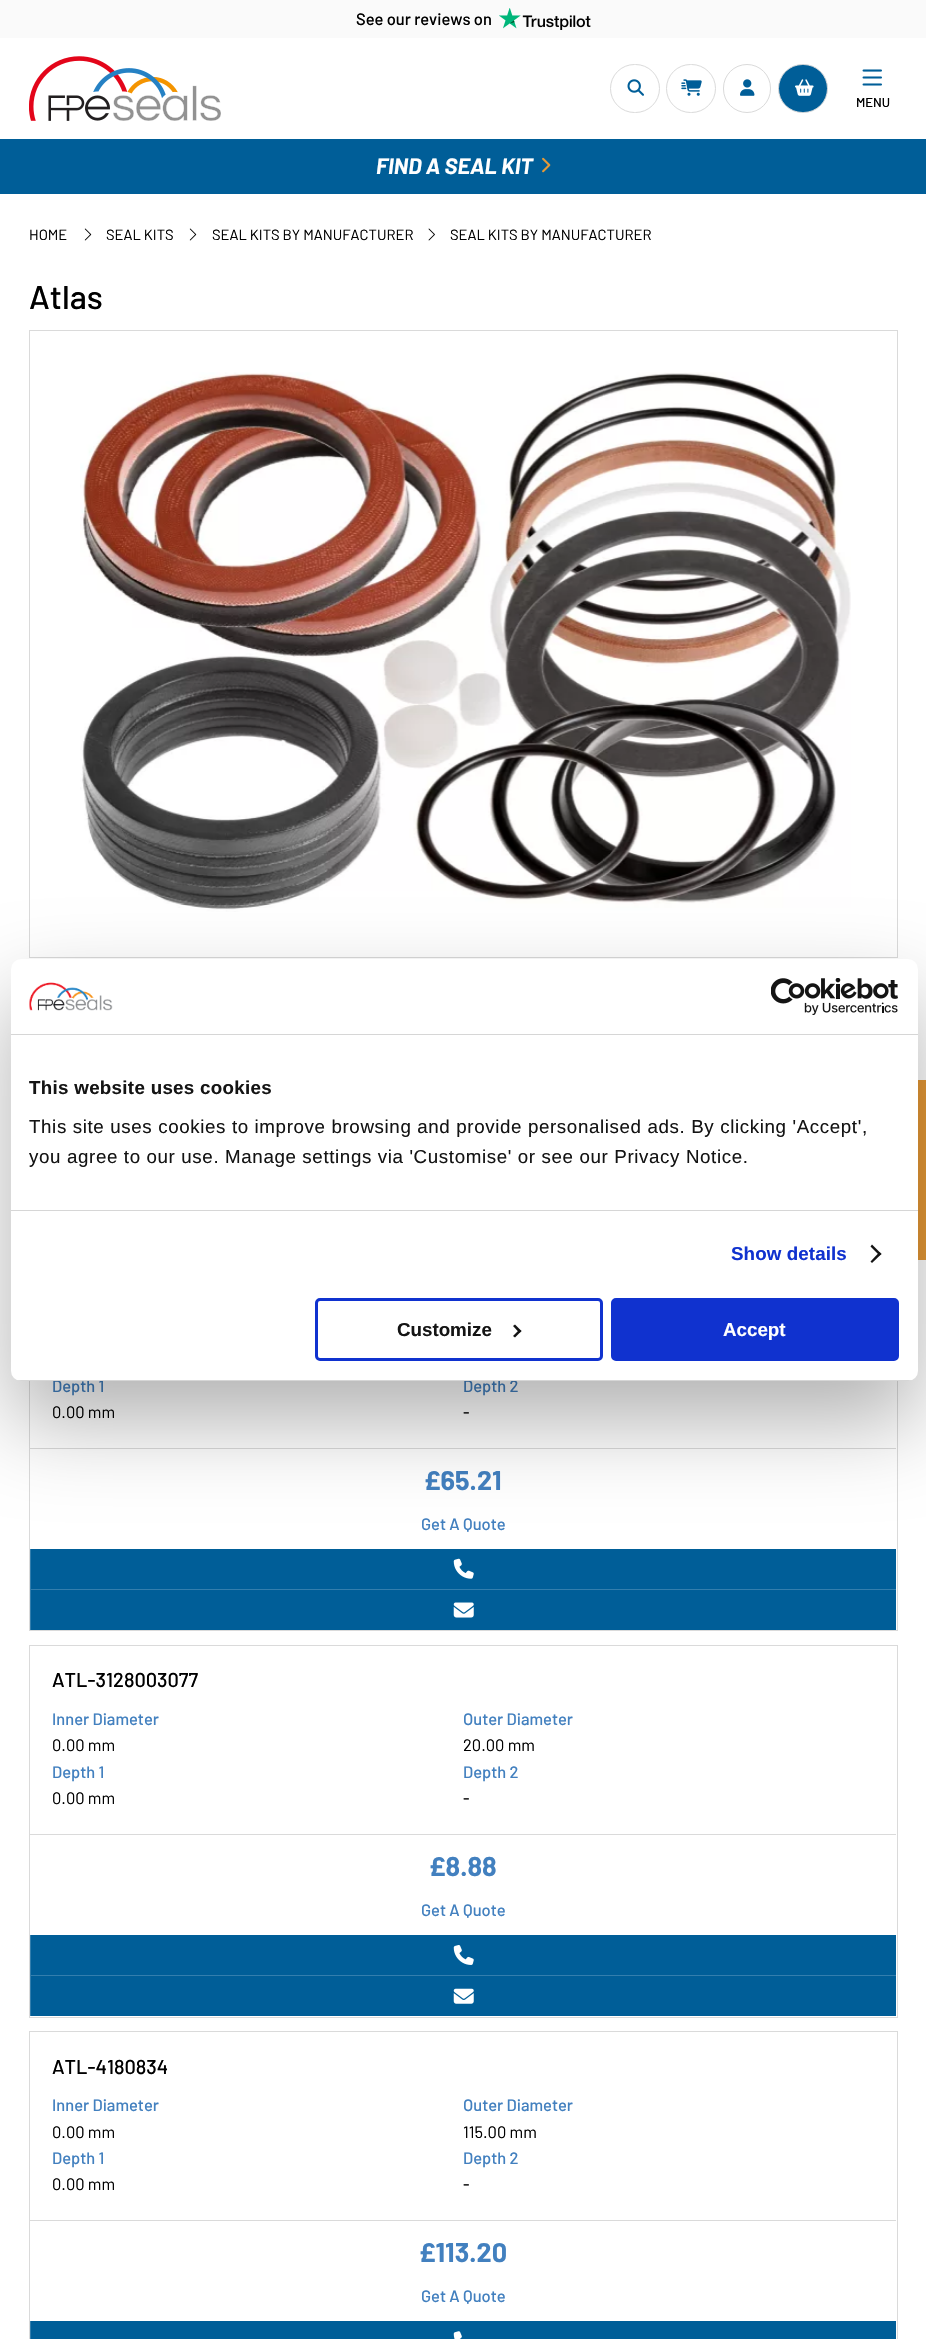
void draw(SkCanvas* canvas) {
    SkPaint paint;
    paint.setAntiAlias(true);
    auto face = [&](const char* family, int weight, float size, bool italic = false) {
        SkFontStyle style(weight, SkFontStyle::kNormal_Width,
            italic ? SkFontStyle::kItalic_Slant : SkFontStyle::kUpright_Slant);
        SkFont result(fontMgr->matchFamilyStyle(family, style), size);
        result.setSubpixel(true);
        return result;
    };
    auto write = [&](const char* s, float x, float y, const SkFont& font, SkColor color) {
        SkPaint ink(SkColor4f::FromColor(color));
        ink.setAntiAlias(true);
        canvas->drawString(s, x, y, font, ink);
    };
    auto writeSpaced = [&](const char* s, float x, float y, const SkFont& font, const SkPaint& ink, float letter, float word) {
        std::vector<SkGlyphID> glyphs(font.countText(s, strlen(s), SkTextEncoding::kUTF8));
        std::vector<float> xs(glyphs.size());
        font.textToGlyphs(s, strlen(s), SkTextEncoding::kUTF8, glyphs);
        font.getXPos(glyphs, xs, x);
        float extra = 0;
        for (size_t i = 0; i < glyphs.size(); i++) {
            xs[i] += extra;
            extra += letter + word * (glyphs[i] == font.unicharToGlyph(' '));
        }
        canvas->drawTextBlob(SkTextBlob::MakeFromPosHGlyphs(glyphs, xs, y, font), 0, 0, ink);
    };
    auto block = [&](float x, float y, float w, float h, SkColor color) {
        SkPaint ink(SkColor4f::FromColor(color));
        ink.setAntiAlias(true);
        canvas->drawRect(SkRect::MakeXYWH(x, y, w, h), ink);
    };
    auto card = [&](float x, float y, float w, float h, float radius, SkColor color) {
        SkPaint ink(SkColor4f::FromColor(color));
        ink.setAntiAlias(true);
        canvas->drawRoundRect(SkRect::MakeXYWH(x, y, w, h), radius, radius, ink);
    };
    auto paste = [&](const char* path, float x, float y, float w, float h) {
        auto image = SkImages::DeferredFromEncodedData(SkData::MakeFromFileName(path));
        canvas->drawImageRect(image, SkRect::MakeXYWH(x, y, w, h), SkSamplingOptions());
    };
    canvas->clear(SK_ColorWHITE);
    block(0, 0, 926, 38, SkColorSetRGB(250, 250, 250));
    auto kFont1 = face("Barlow", 500, 16.5f);
    write("See our reviews on", 356, 25, kFont1, SK_ColorBLACK);
    paste("pic1.png", 499, 8, 92, 22);
    paste("pic2.png", 29, 56, 192, 65);
    paint.setStyle(SkPaint::kStroke_Style);
    paint.setStrokeWidth(1);
    paint.setColor(SkColorSetRGB(218, 218, 218));
    canvas->drawRoundRect(SkRect::MakeXYWH(610.5f, 64.5f, 49, 48), 24, 24, paint);
    paste("pic3.png", 627, 79, 17, 17);
    canvas->drawRoundRect(SkRect::MakeXYWH(666.5f, 64.5f, 49, 48), 24, 24, paint);
    paste("pic4.png", 681, 79, 21, 17);
    canvas->drawRoundRect(SkRect::MakeXYWH(723.5f, 64.5f, 47, 48), 23.5f, 23.5f, paint);
    paste("pic5.png", 740, 79, 15, 17);
    paint.setStyle(SkPaint::kFill_Style);
    paint.setColor(SkColorSetRGB(0, 94, 152));
    canvas->drawRoundRect(SkRect::MakeXYWH(778.5f, 64.5f, 49, 48), 24, 24, paint);
    paint.setStyle(SkPaint::kStroke_Style);
    paint.setColor(SkColorSetRGB(218, 218, 218));
    canvas->drawRoundRect(SkRect::MakeXYWH(778.5f, 64.5f, 49, 48), 24, 24, paint);
    paste("pic6.png", 795, 79, 19, 17);
    paste("pic7.png", 862, 69, 20, 17);
    auto kFont2 = face("Barlow", 500, 13);
    write("MENU", 856, 107, kFont2, SK_ColorBLACK);
    block(0, 139, 926, 55, SkColorSetRGB(0, 94, 152));
    auto kFont3 = face("Barlow", 700, 22.25f, true);
    write("FIND A SEAL KIT", 376, 174, kFont3, SK_ColorWHITE);
    paste("pic8.png", 542, 157, 9, 16);
    auto kFont4 = face("Barlow", 400, 14.75f);
    write("HOME", 29, 240, kFont4, SK_ColorBLACK);
    paste("pic9.png", 84, 228, 8, 13);
    write("SEAL KITS", 106, 240, kFont4, SK_ColorBLACK);
    paste("pic9.png", 189, 228, 8, 13);
    write("SEAL KITS BY MANUFACTURER", 212, 240, kFont4, SK_ColorBLACK);
    paste("pic10.png", 428, 228, 7, 13);
    write("SEAL KITS BY MANUFACTURER", 450, 240, kFont4, SK_ColorBLACK);
    auto kFont5 = face("Barlow", 500, 33);
    write("Atlas", 29, 309, kFont5, SK_ColorBLACK);
    canvas->drawRect(SkRect::MakeXYWH(29.5f, 330.5f, 868, 627), paint);
    paste("pic11.png", 80, 372, 771, 540);
    canvas->drawRect(SkRect::MakeXYWH(29.5f, 1259.5f, 868, 371), paint);
    write("Depth 1", 52, 1392, kFont1, SkColorSetRGB(66, 128, 191));
    auto kFont6 = face("Barlow", 400, 16.5f);
    write("0.00 mm", 52, 1418, kFont6, SK_ColorBLACK);
    write("Depth 2", 463, 1392, kFont1, SkColorSetRGB(66, 128, 191));
    write("-", 463, 1418, kFont6, SK_ColorBLACK);
    block(30, 1448, 866, 1, SkColorSetRGB(218, 218, 218));
    auto kFont7 = face("Barlow", 700, 27);
    write("£65.21", 424, 1490, kFont7, SkColorSetRGB(66, 128, 191));
    write("Get A Quote", 421, 1530, kFont1, SkColorSetRGB(66, 128, 191));
    block(31, 1549, 865, 81, SkColorSetRGB(0, 94, 152));
    block(30, 1549, 1, 81, SkColorSetRGB(51, 126, 173));
    block(31, 1589, 865, 1, SkColorSetRGB(51, 126, 173));
    paste("pic12.png", 453, 1558, 21, 21);
    paste("pic13.png", 453, 1602, 21, 16);
    canvas->drawRect(SkRect::MakeXYWH(29.5f, 1645.5f, 868, 372), paint);
    auto kFont8 = face("Barlow", 500, 20);
    write("ATL-3128003077", 52, 1687, kFont8, SK_ColorBLACK);
    write("Inner Diameter", 52, 1725, kFont1, SkColorSetRGB(66, 128, 191));
    write("0.00 mm", 52, 1751, kFont6, SK_ColorBLACK);
    write("Outer Diameter", 463, 1725, kFont1, SkColorSetRGB(66, 128, 191));
    write("20.00 mm", 463, 1751, kFont6, SK_ColorBLACK);
    write("Depth 1", 52, 1778, kFont1, SkColorSetRGB(66, 128, 191));
    write("0.00 mm", 52, 1804, kFont6, SK_ColorBLACK);
    write("Depth 2", 463, 1778, kFont1, SkColorSetRGB(66, 128, 191));
    write("-", 463, 1804, kFont6, SK_ColorBLACK);
    block(30, 1834, 866, 1, SkColorSetRGB(218, 218, 218));
    write("£8.88", 429, 1876, kFont7, SkColorSetRGB(66, 128, 191));
    write("Get A Quote", 421, 1916, kFont1, SkColorSetRGB(66, 128, 191));
    block(31, 1935, 865, 81, SkColorSetRGB(0, 94, 152));
    block(30, 1935, 1, 81, SkColorSetRGB(51, 126, 173));
    block(31, 1975, 865, 1, SkColorSetRGB(51, 126, 173));
    paste("pic14.png", 453, 1945, 21, 20);
    paste("pic15.png", 453, 1988, 21, 16);
    canvas->drawRect(SkRect::MakeXYWH(29.5f, 2031.5f, 868, 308), paint);
    write("ATL-4180834", 52, 2074, kFont8, SK_ColorBLACK);
    write("Inner Diameter", 52, 2111, kFont1, SkColorSetRGB(66, 128, 191));
    write("0.00 mm", 52, 2138, kFont6, SK_ColorBLACK);
    write("Outer Diameter", 463, 2111, kFont1, SkColorSetRGB(66, 128, 191));
    write("115.00 mm", 463, 2138, kFont6, SK_ColorBLACK);
    write("Depth 1", 52, 2164, kFont1, SkColorSetRGB(66, 128, 191));
    write("0.00 mm", 52, 2190, kFont6, SK_ColorBLACK);
    write("Depth 2", 463, 2164, kFont1, SkColorSetRGB(66, 128, 191));
    write("-", 463, 2190, kFont6, SK_ColorBLACK);
    block(30, 2220, 866, 1, SkColorSetRGB(218, 218, 218));
    write("£113.20", 419, 2262, kFont7, SkColorSetRGB(66, 128, 191));
    write("Get A Quote", 421, 2302, kFont1, SkColorSetRGB(66, 128, 191));
    block(31, 2321, 865, 18, SkColorSetRGB(0, 94, 152));
    block(30, 2321, 1, 18, SkColorSetRGB(51, 126, 173));
    paste("pic16.png", 453, 2331, 9, 8);
    paint.setStyle(SkPaint::kFill_Style);
    paint.setColor(SkColorSetRGB(230, 153, 54));
    canvas->drawPath(SkPathBuilder().moveTo(887, 1254).lineTo(887, 1086).cubicTo(887, 1083, 890, 1080, 893, 1080).lineTo(926, 1080).lineTo(926, 1260).lineTo(893, 1260).cubicTo(890, 1260, 887, 1257, 887, 1254).close().detach(), paint);
    paint.setColor(SkColorSetARGB(77, 0, 0, 0));
    paint.setMaskFilter(SkMaskFilter::MakeBlur(kNormal_SkBlurStyle, 42.5f));
    canvas->drawRoundRect(SkRect::MakeXYWH(11, 999, 907, 422), 10, 10, paint);
    paint.setMaskFilter(nullptr);
    card(11, 959, 907, 422, 10, SK_ColorWHITE);
    block(11, 1034, 907, 1, SkColorSetRGB(214, 214, 214));
    paste("pic17.png", 29, 982, 84, 29);
    paste("pic18.png", 771, 978, 127, 37);
    block(11, 1210, 907, 1, SkColorSetRGB(214, 214, 214));
    auto kFont9 = face("Liberation Sans", 700, 18.75f);
    paint.setColor(SkColorSetRGB(20, 20, 20));
    writeSpaced("This website uses cookies", 29, 1094, kFont9, paint, 0.3f, 0);
    auto kFont10 = face("Liberation Sans", 400, 18.75f);
    writeSpaced("This site uses cookies to improve browsing and provide personalised ads. By clicking 'Accept',", 29, 1133, kFont10, paint, 0.62f, 0);
    writeSpaced("you agree to our use. Manage settings via 'Customise' or see our Privacy Notice.", 29, 1163, kFont10, paint, 0.62f, 0);
    paint.setColor(SkColorSetRGB(16, 50, 207));
    writeSpaced("Show details", 731, 1260, kFont9, paint, 0.1f, 0);
    paint.setColor(SkColorSetRGB(20, 20, 20));
    canvas->drawPath(SkPathBuilder().moveTo(872, 1244.5f).lineTo(881.5f, 1254).lineTo(879.5f, 1255.5f).lineTo(870.5f, 1246.5f).close().detach(), paint);
    canvas->drawPath(SkPathBuilder().moveTo(879.5f, 1252).lineTo(881.5f, 1254).lineTo(872, 1263).lineTo(870.5f, 1261.5f).close().detach(), paint);
    canvas->save();
    canvas->clipPath(SkPathBuilder().moveTo(21, 959).lineTo(908, 959).cubicTo(913.5f, 959, 918, 963.5f, 918, 969).lineTo(918, 1371).cubicTo(918, 1376.5f, 913.5f, 1381, 908, 1381).lineTo(21, 1381).cubicTo(15.5f, 1381, 11, 1376.5f, 11, 1371).lineTo(11, 969).cubicTo(11, 963.5f, 15.5f, 959, 21, 959).close().detach(), true);
    block(11, 1380, 907, 1, SkColorSetRGB(214, 214, 214));
    canvas->restore();
    paint.setStyle(SkPaint::kStroke_Style);
    paint.setStrokeWidth(3);
    paint.setColor(SkColorSetRGB(16, 50, 207));
    canvas->drawRoundRect(SkRect::MakeXYWH(316.5f, 1299.5f, 285, 60), 3.5f, 3.5f, paint);
    write("Customize", 397, 1336, kFont9, SkColorSetRGB(20, 20, 20));
    paint.setStyle(SkPaint::kFill_Style);
    paint.setColor(SkColorSetRGB(20, 20, 20));
    canvas->drawPath(SkPathBuilder().moveTo(515, 1324.5f).lineTo(521.5f, 1331).lineTo(519.5f, 1333).lineTo(513, 1326).close().detach(), paint);
    canvas->drawPath(SkPathBuilder().moveTo(519.5f, 1329.5f).lineTo(521.5f, 1331).lineTo(515, 1337.5f).lineTo(513, 1336).close().detach(), paint);
    paint.setColor(SkColorSetRGB(16, 50, 207));
    canvas->drawRoundRect(SkRect::MakeXYWH(612.5f, 1299.5f, 285, 60), 3.5f, 3.5f, paint);
    paint.setStyle(SkPaint::kStroke_Style);
    canvas->drawRoundRect(SkRect::MakeXYWH(612.5f, 1299.5f, 285, 60), 3.5f, 3.5f, paint);
    write("Accept", 723, 1336, kFont9, SK_ColorWHITE);
}
